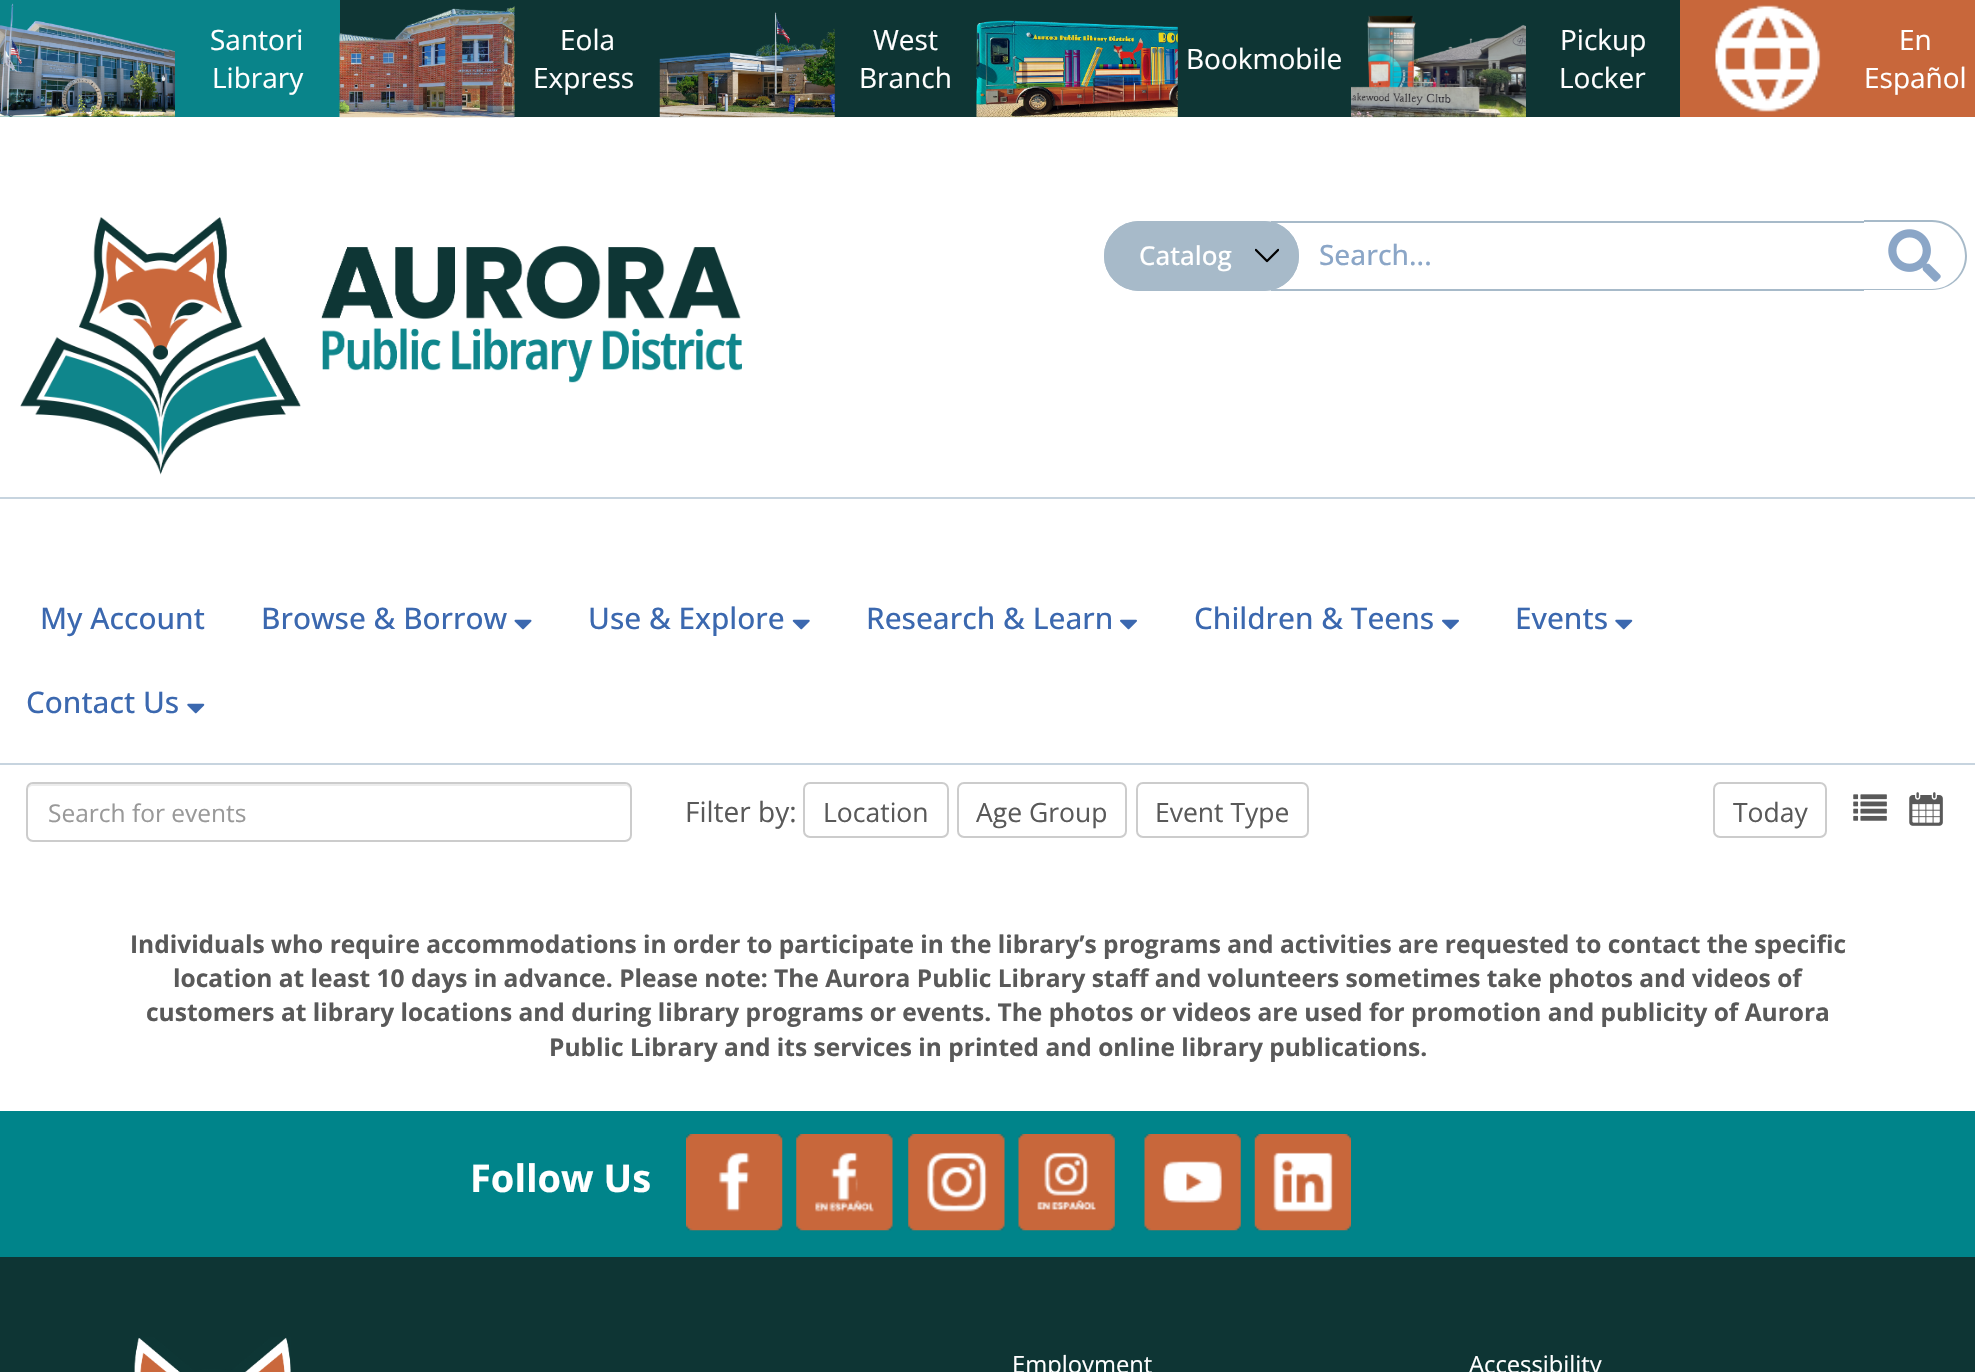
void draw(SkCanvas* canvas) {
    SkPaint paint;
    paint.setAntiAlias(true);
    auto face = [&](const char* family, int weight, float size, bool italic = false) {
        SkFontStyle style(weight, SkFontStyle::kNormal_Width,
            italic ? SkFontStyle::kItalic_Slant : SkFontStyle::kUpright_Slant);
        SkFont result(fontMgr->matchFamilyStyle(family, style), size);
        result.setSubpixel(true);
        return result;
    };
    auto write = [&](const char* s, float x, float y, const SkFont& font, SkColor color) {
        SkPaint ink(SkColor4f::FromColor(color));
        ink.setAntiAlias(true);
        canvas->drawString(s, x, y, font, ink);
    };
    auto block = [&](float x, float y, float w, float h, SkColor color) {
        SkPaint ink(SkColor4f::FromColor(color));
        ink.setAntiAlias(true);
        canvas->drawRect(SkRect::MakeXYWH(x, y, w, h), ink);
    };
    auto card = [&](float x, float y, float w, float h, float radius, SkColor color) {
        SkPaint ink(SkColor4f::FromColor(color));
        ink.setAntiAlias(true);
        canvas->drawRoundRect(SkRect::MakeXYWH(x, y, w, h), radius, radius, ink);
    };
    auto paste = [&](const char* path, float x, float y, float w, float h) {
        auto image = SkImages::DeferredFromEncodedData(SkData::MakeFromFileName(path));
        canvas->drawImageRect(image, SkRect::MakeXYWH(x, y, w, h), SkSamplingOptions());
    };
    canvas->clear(SK_ColorWHITE);
    block(0, 0, 340, 117, SkColorSetRGB(9, 132, 138));
    paste("pic1.png", 0, 3, 175, 114);
    auto kFont1 = face("Open Sans", 400, 28);
    write("Santori", 210, 50, kFont1, SK_ColorWHITE);
    write("Library", 212, 88, kFont1, SK_ColorWHITE);
    block(340, 0, 1340, 117, SkColorSetRGB(14, 53, 52));
    paste("pic2.png", 339, 6, 176, 112);
    write("Eola", 560, 50, kFont1, SK_ColorWHITE);
    write("Express", 533, 88, kFont1, SK_ColorWHITE);
    paste("pic3.png", 659, 12, 176, 106);
    write("West", 873, 50, kFont1, SK_ColorWHITE);
    write("Branch", 859, 88, kFont1, SK_ColorWHITE);
    paste("pic4.png", 976, 20, 202, 98);
    write("Bookmobile", 1186, 69, kFont1, SK_ColorWHITE);
    paste("pic5.png", 1351, 15, 175, 103);
    write("Pickup", 1560, 50, kFont1, SK_ColorWHITE);
    write("Locker", 1559, 88, kFont1, SK_ColorWHITE);
    block(1680, 0, 295, 117, SkColorSetRGB(200, 103, 59));
    paste("pic6.png", 1715, 5, 106, 107);
    write("En", 1899, 50, kFont1, SK_ColorWHITE);
    write("Español", 1864, 88, kFont1, SK_ColorWHITE);
    paste("pic7.png", 20, 217, 722, 258);
    block(1271, 221, 593, 2, SkColorSetRGB(167, 186, 201));
    block(1271, 289, 593, 2, SkColorSetRGB(167, 186, 201));
    card(1104, 221, 195, 70, 35, SkColorSetRGB(167, 186, 201));
    paste("pic8.png", 1255, 248, 24, 15);
    paint.setStyle(SkPaint::kStroke_Style);
    paint.setStrokeWidth(2);
    paint.setColor(SkColorSetRGB(167, 186, 201));
    canvas->drawRoundRect(SkRect::MakeXYWH(1105, 222, 193, 68), 34, 34, paint);
    auto kFont2 = face("Open Sans", 500, 26);
    write("Catalog", 1139, 265, kFont2, SK_ColorWHITE);
    auto kFont3 = face("Open Sans", 500, 28);
    write("Search...", 1319, 265, kFont3, SkColorSetRGB(139, 166, 199));
    paint.setStyle(SkPaint::kFill_Style);
    canvas->drawPath(SkPathBuilder(SkPathFillType::kEvenOdd).moveTo(1864, 220).lineTo(1932, 220).cubicTo(1951, 220, 1967, 236, 1967, 256).cubicTo(1967, 275, 1951, 290, 1932, 290).lineTo(1864, 290).close().moveTo(1864, 222).lineTo(1932, 222).cubicTo(1950, 222, 1965, 237, 1965, 256).cubicTo(1965, 274, 1950, 289, 1932, 289).lineTo(1864, 289).close().detach(), paint);
    paste("pic9.png", 1888, 229, 53, 53);
    block(0, 497, 1975, 2, SkColorSetRGB(199, 212, 223));
    block(0, 763, 1975, 2, SkColorSetRGB(199, 212, 223));
    auto kFont4 = face("Open Sans", 500, 29.75f);
    write("My Account", 40, 629, kFont4, SkColorSetRGB(59, 104, 175));
    write("Browse & Borrow", 261, 629, kFont4, SkColorSetRGB(59, 104, 175));
    paste("pic10.png", 514, 619, 18, 11);
    write("Use & Explore", 588, 629, kFont4, SkColorSetRGB(59, 104, 175));
    paste("pic11.png", 792, 619, 18, 11);
    write("Research & Learn", 866, 629, kFont4, SkColorSetRGB(59, 104, 175));
    paste("pic12.png", 1120, 619, 17, 11);
    write("Children & Teens", 1194, 629, kFont4, SkColorSetRGB(59, 104, 175));
    paste("pic12.png", 1442, 619, 17, 11);
    write("Events", 1515, 629, kFont4, SkColorSetRGB(59, 104, 175));
    paste("pic13.png", 1615, 619, 18, 11);
    write("Contact Us", 26, 713, kFont4, SkColorSetRGB(59, 104, 175));
    paste("pic13.png", 187, 703, 18, 11);
    paint.setColor(SkColorSetRGB(236, 236, 236));
    canvas->drawPath(SkPathBuilder().moveTo(33, 786).lineTo(625, 786).cubicTo(628, 786, 630, 788, 630, 791).cubicTo(630, 788, 629, 784, 625, 784).lineTo(33, 784).cubicTo(29, 784, 28, 788, 28, 791).cubicTo(28, 788, 30, 786, 33, 786).close().detach(), paint);
    paint.setStyle(SkPaint::kStroke_Style);
    paint.setColor(SkColorSetRGB(204, 204, 204));
    canvas->drawRoundRect(SkRect::MakeXYWH(27, 783, 604, 58), 6, 6, paint);
    auto kFont5 = face("Open Sans", 400, 24.5f);
    write("Search for events", 48, 822, kFont5, SkColorSetRGB(153, 153, 153));
    write("Filter by:", 685, 822, kFont1, SkColorSetRGB(89, 89, 89));
    canvas->drawRoundRect(SkRect::MakeXYWH(804, 783, 144, 54), 6, 6, paint);
    auto kFont6 = face("Open Sans", 400, 26.5f);
    write("Location", 823, 822, kFont6, SkColorSetRGB(89, 89, 89));
    canvas->drawRoundRect(SkRect::MakeXYWH(958, 783, 168, 54), 6, 6, paint);
    write("Age Group", 976, 822, kFont6, SkColorSetRGB(89, 89, 89));
    canvas->drawRoundRect(SkRect::MakeXYWH(1137, 783, 171, 54), 6, 6, paint);
    write("Event Type", 1155, 822, kFont6, SkColorSetRGB(89, 89, 89));
    canvas->drawRoundRect(SkRect::MakeXYWH(1714, 783, 112, 54), 6, 6, paint);
    write("Today", 1733, 822, kFont6, SkColorSetRGB(89, 89, 89));
    paste("pic14.png", 1853, 794, 34, 27);
    paste("pic15.png", 1909, 792, 34, 34);
    auto kFont7 = face("Open Sans", 700, 24.5f);
    write("Individuals who require accommodations in order to participate in the library’s programs and activities are requested to contact the specific", 130, 953, kFont7, SkColorSetRGB(89, 89, 89));
    write("location at least 10 days in advance. Please note: The Aurora Public Library staff and volunteers sometimes take photos and videos of", 173, 987, kFont7, SkColorSetRGB(89, 89, 89));
    write("customers at library locations and during library programs or events. The photos or videos are used for promotion and publicity of Aurora", 146, 1021, kFont7, SkColorSetRGB(89, 89, 89));
    write("Public Library and its services in printed and online library publications.", 549, 1056, kFont7, SkColorSetRGB(89, 89, 89));
    block(0, 1111, 1975, 146, SkColorSetRGB(0, 132, 138));
    auto kFont8 = face("Open Sans", 700, 38);
    write("Follow Us", 470, 1192, kFont8, SK_ColorWHITE);
    paste("pic16.png", 686, 1134, 97, 97);
    paste("pic17.png", 796, 1134, 97, 97);
    paste("pic18.png", 908, 1134, 97, 97);
    paste("pic19.png", 1018, 1134, 97, 97);
    paste("pic20.png", 1144, 1134, 97, 97);
    paste("pic21.png", 1254, 1134, 97, 97);
    block(0, 1257, 1975, 115, SkColorSetRGB(14, 53, 52));
    paste("pic22.png", 134, 1337, 157, 35);
    auto kFont9 = face("Open Sans", 400, 23.75f);
    write("Employment", 1012, 1373, kFont9, SK_ColorWHITE);
    write("Accessibility", 1469, 1373, kFont9, SK_ColorWHITE);
}
